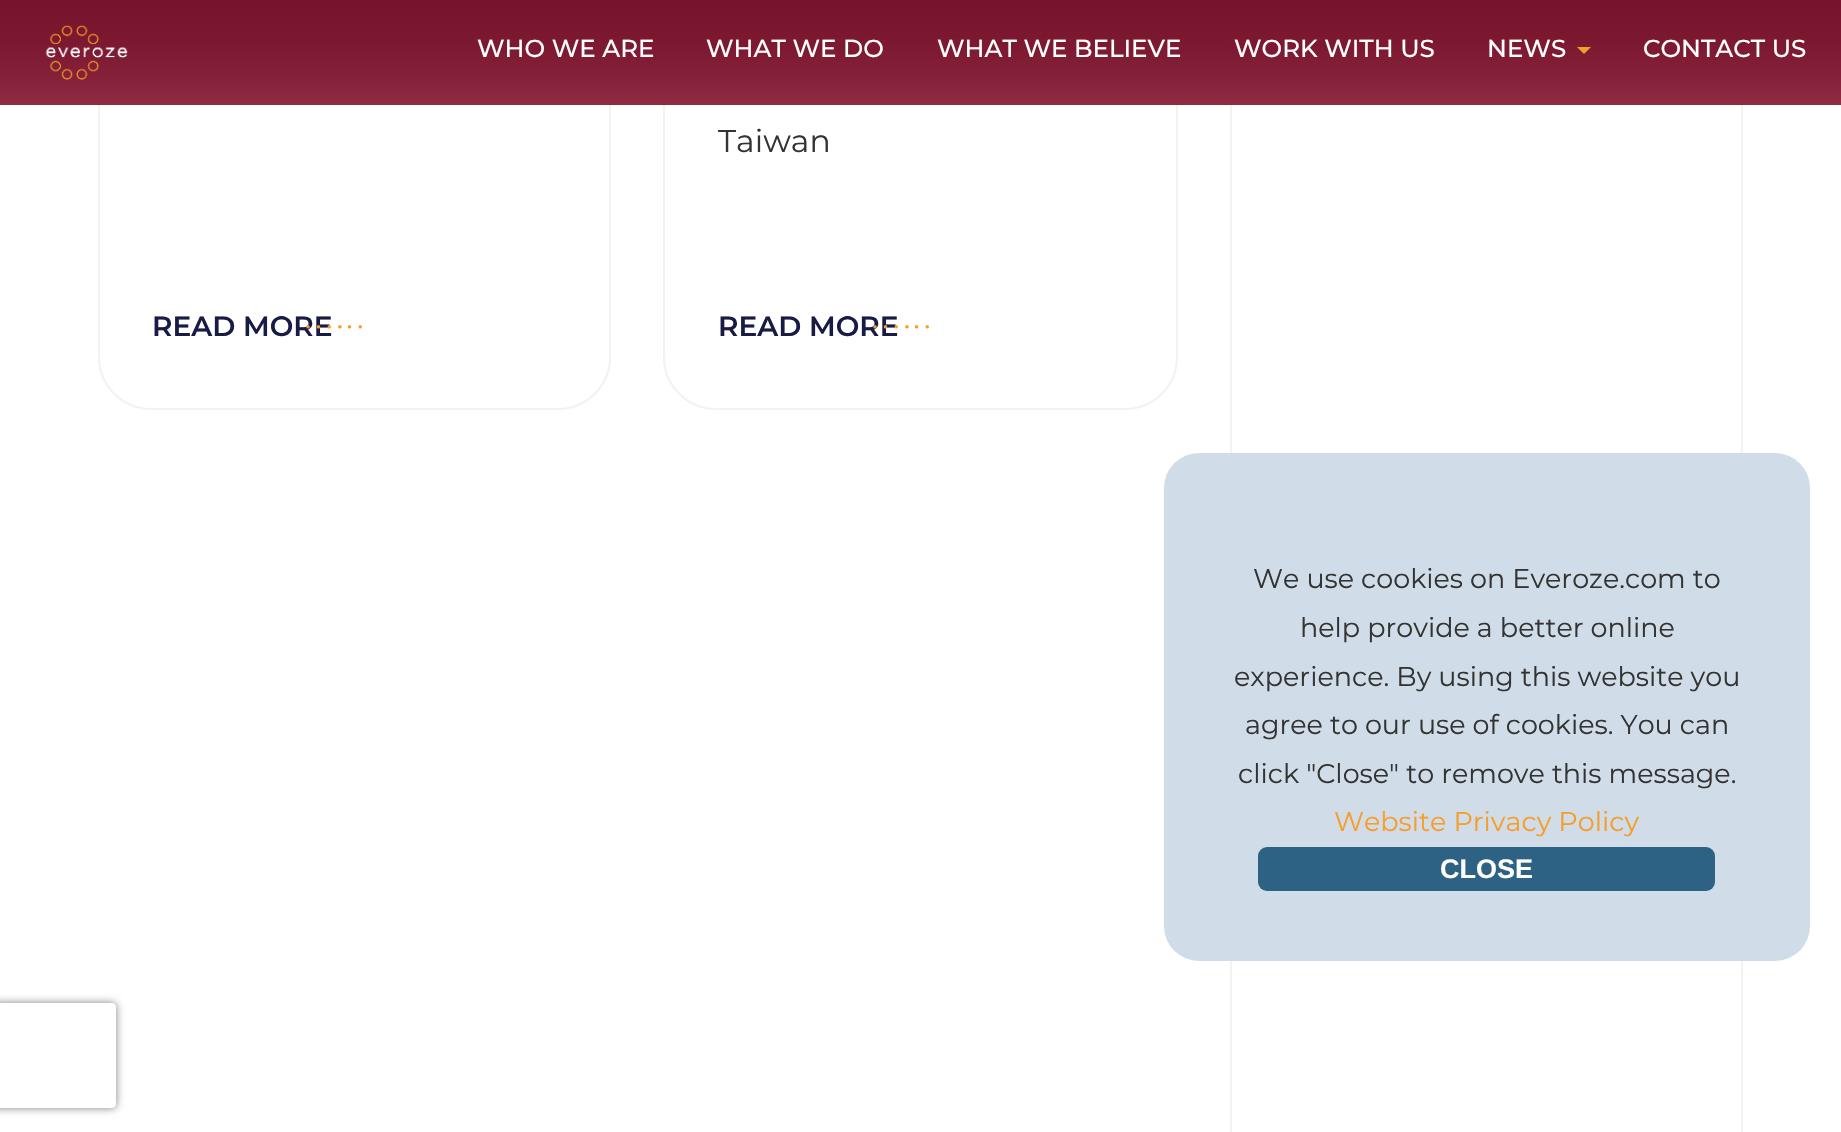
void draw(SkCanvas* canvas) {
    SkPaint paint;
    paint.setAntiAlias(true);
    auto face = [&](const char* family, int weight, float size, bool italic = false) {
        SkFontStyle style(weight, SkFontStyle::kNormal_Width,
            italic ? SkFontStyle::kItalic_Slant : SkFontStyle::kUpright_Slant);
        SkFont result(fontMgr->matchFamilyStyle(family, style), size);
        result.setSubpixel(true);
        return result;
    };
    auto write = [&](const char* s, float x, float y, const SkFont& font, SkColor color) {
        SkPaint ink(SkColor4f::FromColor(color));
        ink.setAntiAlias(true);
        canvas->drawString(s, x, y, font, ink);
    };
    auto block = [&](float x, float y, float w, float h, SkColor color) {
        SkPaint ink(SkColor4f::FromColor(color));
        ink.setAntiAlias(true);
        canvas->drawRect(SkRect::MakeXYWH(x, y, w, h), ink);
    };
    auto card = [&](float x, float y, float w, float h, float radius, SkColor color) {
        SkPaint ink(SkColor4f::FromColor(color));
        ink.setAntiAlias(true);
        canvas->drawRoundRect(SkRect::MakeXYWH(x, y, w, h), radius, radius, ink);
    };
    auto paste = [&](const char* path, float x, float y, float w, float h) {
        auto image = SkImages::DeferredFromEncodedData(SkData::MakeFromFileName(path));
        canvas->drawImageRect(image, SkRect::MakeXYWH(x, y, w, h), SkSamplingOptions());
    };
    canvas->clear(SK_ColorWHITE);
    paint.setStyle(SkPaint::kStroke_Style);
    paint.setStrokeWidth(2);
    paint.setColor(SkColorSetRGB(242, 242, 242));
    canvas->drawRoundRect(SkRect::MakeXYWH(99, -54, 511, 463), 52, 52, paint);
    canvas->drawRoundRect(SkRect::MakeXYWH(664, -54, 513, 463), 52, 52, paint);
    canvas->drawRect(SkRect::MakeXYWH(1231, -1, 511, 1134), paint);
    paint.setStyle(SkPaint::kFill_Style);
    {
        const SkColor colors[] = {SK_ColorBLACK, SkColorSetARGB(191, 0, 0, 0), SkColorSetARGB(107, 0, 0, 0), SkColorSetARGB(0, 0, 0, 0)};
        const float stops[] = {0, 0.45f, 0.75f, 1};
        const SkPoint ends[] = {{921, 0}, {921, 105}};
        paint.setShader(SkGradientShader::MakeLinear(ends, colors, stops, 4, SkTileMode::kClamp));
        paint.setAlpha(255);
    }
    canvas->drawRect(SkRect::MakeXYWH(0, 0, 1841, 104), paint);
    block(0, 0, 1841, 105, SkColorSetARGB(230, 131, 20, 47));
    paste("pic1.png", 45, 25, 83, 55);
    auto kFont1 = face("Montserrat", 500, 24.5f);
    write("WHO WE ARE", 477, 57, kFont1, SK_ColorWHITE);
    write("WHAT WE DO", 706, 57, kFont1, SK_ColorWHITE);
    write("WHAT WE BELIEVE", 937, 57, kFont1, SK_ColorWHITE);
    write("WORK WITH US", 1234, 57, kFont1, SK_ColorWHITE);
    write("NEWS", 1487, 57, kFont1, SK_ColorWHITE);
    paint.setShader(nullptr);
    paint.setColor(SkColorSetRGB(247, 157, 41));
    canvas->drawPath(SkPathBuilder().moveTo(1577, 47).lineTo(1591, 47).lineTo(1584, 54).close().detach(), paint);
    write("CONTACT US", 1643, 57, kFont1, SK_ColorWHITE);
    auto kFont2 = face("Montserrat", 600, 28);
    write("READ MORE", 152, 336, kFont2, SkColorSetRGB(24, 27, 68));
    paste("pic2.png", 306, 325, 56, 4);
    auto kFont3 = face("Montserrat", 400, 31.5f);
    write("Taiwan", 718, 152, kFont3, SkColorSetRGB(51, 51, 51));
    write("READ MORE", 718, 336, kFont2, SkColorSetRGB(24, 27, 68));
    paste("pic3.png", 873, 325, 56, 4);
    card(1164, 453, 646, 508, 35, SkColorSetRGB(208, 221, 232));
    auto kFont4 = face("Montserrat", 400, 27);
    write("We use cookies on Everoze.com to", 1253, 588, kFont4, SkColorSetRGB(51, 51, 51));
    write("help provide a better online", 1300, 637, kFont4, SkColorSetRGB(51, 51, 51));
    write("experience. By using this website you", 1234, 686, kFont4, SkColorSetRGB(51, 51, 51));
    write("agree to our use of cookies. You can", 1245, 734, kFont4, SkColorSetRGB(51, 51, 51));
    write("click \"Close\" to remove this message.", 1238, 783, kFont4, SkColorSetRGB(51, 51, 51));
    write("Website Privacy Policy", 1334, 831, kFont4, SkColorSetRGB(247, 157, 41));
    card(1258, 847, 457, 44, 9, SkColorSetRGB(45, 98, 132));
    auto kFont5 = face("Liberation Sans", 700, 27);
    write("CLOSE", 1440, 878, kFont5, SK_ColorWHITE);
    canvas->save();
    canvas->clipPath(SkPathBuilder(SkPathFillType::kEvenOdd).moveTo(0, 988).lineTo(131, 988).lineTo(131, 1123).lineTo(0, 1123).close().moveTo(-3, 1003).lineTo(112, 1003).cubicTo(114, 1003, 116, 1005, 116, 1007).lineTo(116, 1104).cubicTo(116, 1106, 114, 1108, 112, 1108).lineTo(-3, 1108).cubicTo(-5, 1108, -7, 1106, -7, 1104).lineTo(-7, 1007).cubicTo(-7, 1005, -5, 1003, -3, 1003).close().detach(), true);
    paint.setColor(SkColorSetRGB(128, 128, 128));
    paint.setMaskFilter(SkMaskFilter::MakeBlur(kNormal_SkBlurStyle, 4.5f));
    canvas->drawRoundRect(SkRect::MakeXYWH(-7, 1003, 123, 105), 4, 4, paint);
    paint.setMaskFilter(nullptr);
    canvas->restore();
}
